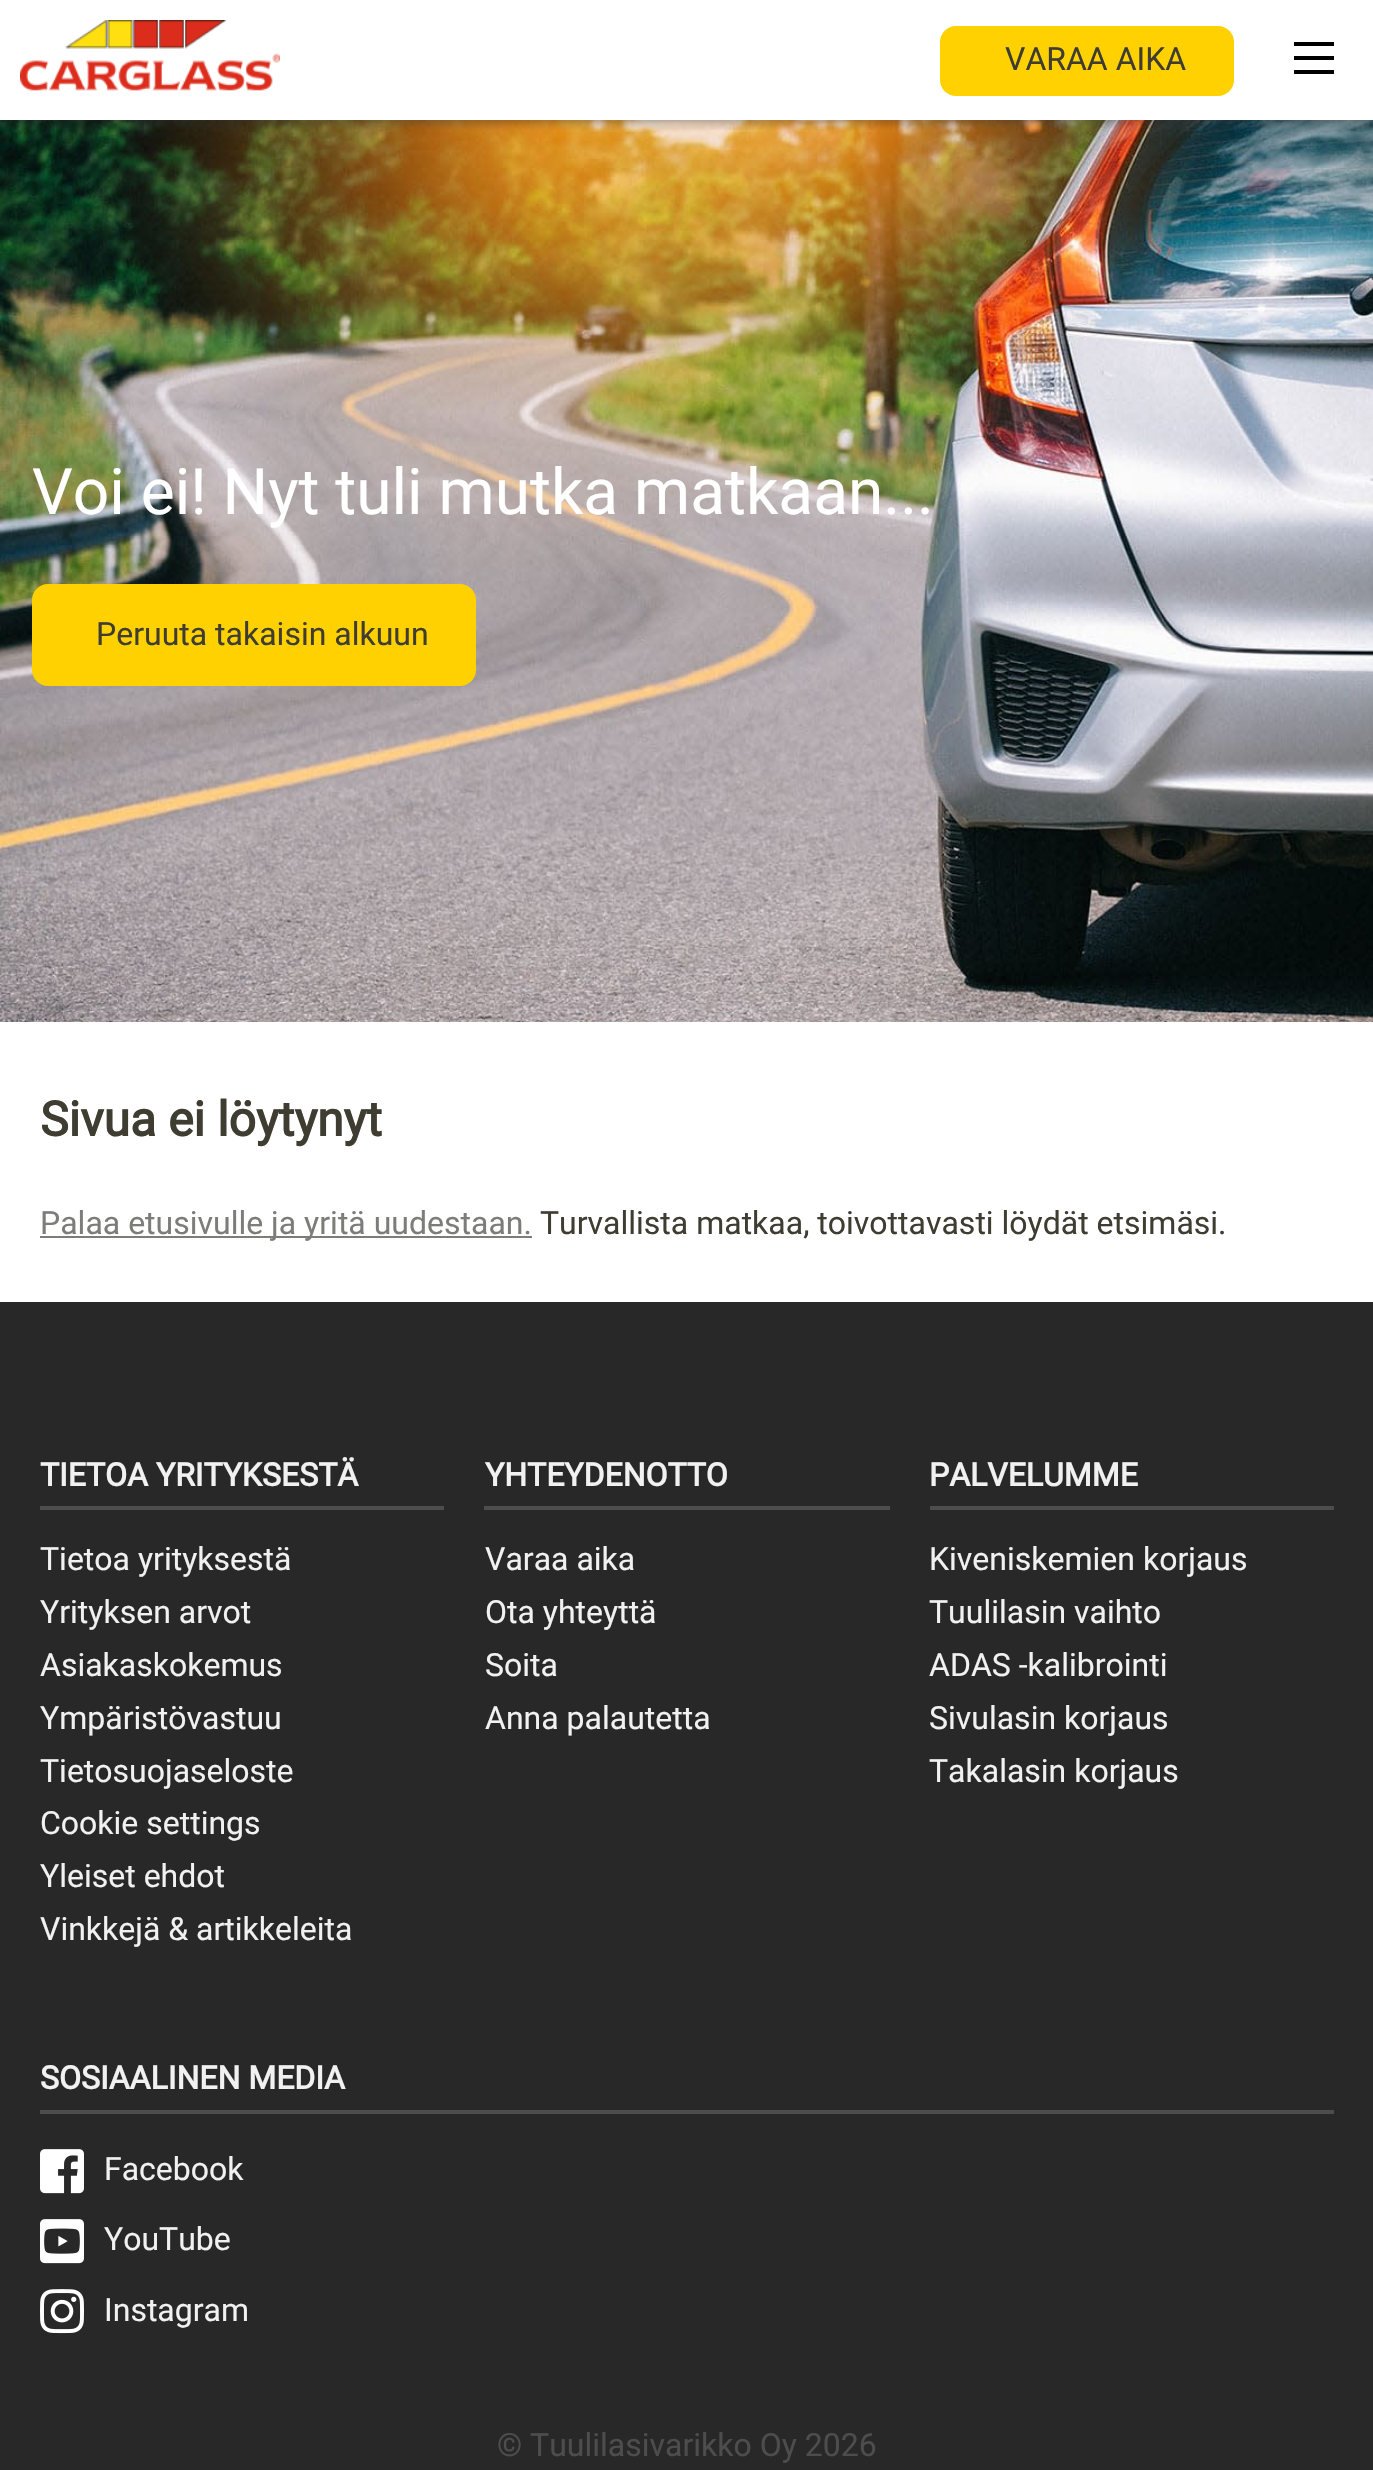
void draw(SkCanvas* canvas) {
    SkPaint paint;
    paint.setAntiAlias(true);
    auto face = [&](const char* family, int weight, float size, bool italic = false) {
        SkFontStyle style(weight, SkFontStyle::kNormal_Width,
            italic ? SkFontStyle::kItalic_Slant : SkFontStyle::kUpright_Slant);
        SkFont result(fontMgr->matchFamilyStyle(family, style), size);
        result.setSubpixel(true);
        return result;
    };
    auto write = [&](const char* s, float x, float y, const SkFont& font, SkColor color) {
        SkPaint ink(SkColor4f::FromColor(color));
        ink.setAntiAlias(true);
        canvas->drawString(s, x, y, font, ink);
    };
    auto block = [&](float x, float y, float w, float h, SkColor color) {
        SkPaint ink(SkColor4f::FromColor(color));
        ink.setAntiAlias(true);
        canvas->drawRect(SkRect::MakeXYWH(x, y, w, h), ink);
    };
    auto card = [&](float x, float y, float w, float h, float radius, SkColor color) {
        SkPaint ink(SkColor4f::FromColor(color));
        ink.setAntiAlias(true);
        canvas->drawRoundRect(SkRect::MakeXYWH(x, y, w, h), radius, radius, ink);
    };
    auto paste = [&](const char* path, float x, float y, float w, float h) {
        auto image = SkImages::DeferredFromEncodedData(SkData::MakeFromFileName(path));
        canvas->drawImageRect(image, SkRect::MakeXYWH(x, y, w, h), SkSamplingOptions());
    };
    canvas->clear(SK_ColorWHITE);
    paste("pic2.png", 0, 120, 1373, 902);
    canvas->save();
    canvas->clipRect(SkRect::MakeXYWH(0, 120, 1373, 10));
    paint.setColor(SkColorSetARGB(89, 44, 43, 40));
    paint.setMaskFilter(SkMaskFilter::MakeBlur(kNormal_SkBlurStyle, 4));
    canvas->drawRect(SkRect::MakeXYWH(0, 4, 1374, 120), paint);
    paint.setMaskFilter(nullptr);
    canvas->restore();
    paste("pic1.png", 20, 20, 260, 71);
    card(940, 26, 294, 70, 16, SkColorSetRGB(255, 209, 0));
    auto kFont1 = face("Roboto", 400, 32);
    write("VARAA AIKA", 1005, 70, kFont1, SkColorSetRGB(63, 61, 50));
    block(1294, 56, 40, 4, SK_ColorBLACK);
    block(1294, 42, 40, 4, SK_ColorBLACK);
    block(1294, 70, 40, 4, SK_ColorBLACK);
    auto kFont2 = face("Roboto", 400, 64);
    write("Voi ei! Nyt tuli mutka matkaan...", 32, 514, kFont2, SK_ColorWHITE);
    card(32, 584, 444, 102, 16, SkColorSetRGB(255, 209, 0));
    write("Peruuta takaisin alkuun", 96, 645, kFont1, SkColorSetRGB(63, 61, 50));
    auto kFont3 = face("Roboto", 700, 48);
    write("Sivua ei löytynyt", 40, 1136, kFont3, SkColorSetRGB(63, 61, 50));
    block(40, 1236, 492, 2, SkColorSetRGB(124, 124, 120));
    write("Palaa etusivulle ja yritä uudestaan.", 40, 1234, kFont1, SkColorSetRGB(124, 124, 120));
    write("Turvallista matkaa, toivottavasti löydät etsimäsi.", 540, 1234, kFont1, SkColorSetRGB(63, 61, 50));
    block(0, 1302, 1373, 1168, SkColorSetRGB(40, 40, 40));
    block(40, 1506, 404, 4, SkColorSetRGB(77, 77, 77));
    auto kFont4 = face("Roboto", 700, 32);
    write("TIETOA YRITYKSESTÄ", 40, 1486, kFont4, SkColorSetRGB(241, 241, 241));
    write("Tietoa yrityksestä", 40, 1570, kFont1, SkColorSetRGB(241, 241, 241));
    write("Yrityksen arvot", 40, 1623, kFont1, SkColorSetRGB(241, 241, 241));
    write("Asiakaskokemus", 40, 1676, kFont1, SkColorSetRGB(241, 241, 241));
    write("Ympäristövastuu", 40, 1729, kFont1, SkColorSetRGB(241, 241, 241));
    write("Tietosuojaseloste", 40, 1782, kFont1, SkColorSetRGB(241, 241, 241));
    write("Cookie settings", 40, 1834, kFont1, SkColorSetRGB(241, 241, 241));
    write("Yleiset ehdot", 40, 1887, kFont1, SkColorSetRGB(241, 241, 241));
    write("Vinkkejä & artikkeleita", 40, 1940, kFont1, SkColorSetRGB(241, 241, 241));
    block(484, 1506, 406, 4, SkColorSetRGB(77, 77, 77));
    write("YHTEYDENOTTO", 485, 1486, kFont4, SkColorSetRGB(241, 241, 241));
    write("Varaa aika", 485, 1570, kFont1, SkColorSetRGB(241, 241, 241));
    write("Ota yhteyttä", 485, 1623, kFont1, SkColorSetRGB(241, 241, 241));
    write("Soita", 485, 1676, kFont1, SkColorSetRGB(241, 241, 241));
    write("Anna palautetta", 485, 1729, kFont1, SkColorSetRGB(241, 241, 241));
    block(930, 1506, 404, 4, SkColorSetRGB(77, 77, 77));
    write("PALVELUMME", 929, 1486, kFont4, SkColorSetRGB(241, 241, 241));
    write("Kiveniskemien korjaus", 929, 1570, kFont1, SkColorSetRGB(241, 241, 241));
    write("Tuulilasin vaihto", 929, 1623, kFont1, SkColorSetRGB(241, 241, 241));
    write("ADAS -kalibrointi", 929, 1676, kFont1, SkColorSetRGB(241, 241, 241));
    write("Sivulasin korjaus", 929, 1729, kFont1, SkColorSetRGB(241, 241, 241));
    write("Takalasin korjaus", 929, 1782, kFont1, SkColorSetRGB(241, 241, 241));
    block(40, 2110, 1294, 4, SkColorSetRGB(77, 77, 77));
    write("SOSIAALINEN MEDIA", 40, 2089, kFont4, SkColorSetRGB(241, 241, 241));
    paste("pic3.png", 40, 2149, 44, 45);
    write("Facebook", 104, 2180, kFont1, SkColorSetRGB(241, 241, 241));
    paste("pic4.png", 40, 2219, 44, 45);
    write("YouTube", 104, 2250, kFont1, SkColorSetRGB(241, 241, 241));
    paste("pic5.png", 40, 2289, 44, 45);
    write("Instagram", 104, 2321, kFont1, SkColorSetRGB(241, 241, 241));
    write("© Tuulilasivarikko Oy 2026", 497, 2456, kFont1, SkColorSetRGB(77, 77, 77));
}
